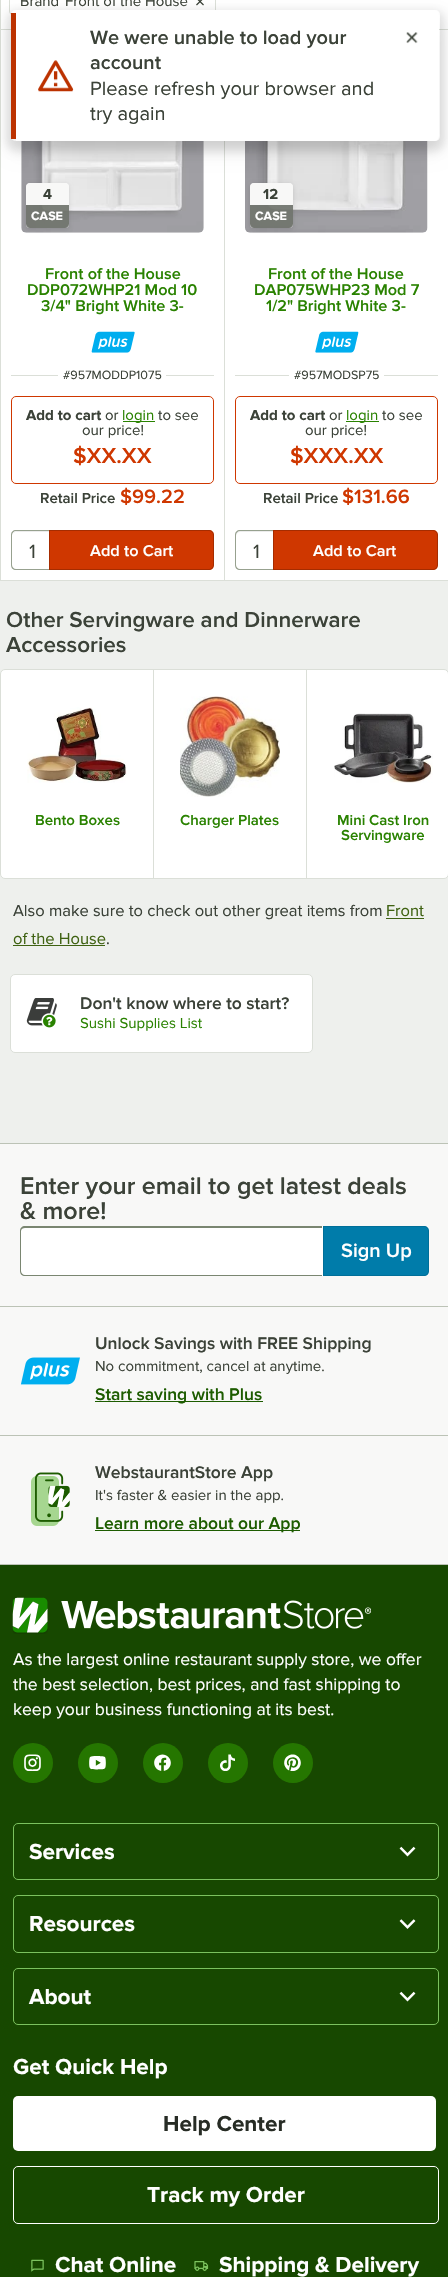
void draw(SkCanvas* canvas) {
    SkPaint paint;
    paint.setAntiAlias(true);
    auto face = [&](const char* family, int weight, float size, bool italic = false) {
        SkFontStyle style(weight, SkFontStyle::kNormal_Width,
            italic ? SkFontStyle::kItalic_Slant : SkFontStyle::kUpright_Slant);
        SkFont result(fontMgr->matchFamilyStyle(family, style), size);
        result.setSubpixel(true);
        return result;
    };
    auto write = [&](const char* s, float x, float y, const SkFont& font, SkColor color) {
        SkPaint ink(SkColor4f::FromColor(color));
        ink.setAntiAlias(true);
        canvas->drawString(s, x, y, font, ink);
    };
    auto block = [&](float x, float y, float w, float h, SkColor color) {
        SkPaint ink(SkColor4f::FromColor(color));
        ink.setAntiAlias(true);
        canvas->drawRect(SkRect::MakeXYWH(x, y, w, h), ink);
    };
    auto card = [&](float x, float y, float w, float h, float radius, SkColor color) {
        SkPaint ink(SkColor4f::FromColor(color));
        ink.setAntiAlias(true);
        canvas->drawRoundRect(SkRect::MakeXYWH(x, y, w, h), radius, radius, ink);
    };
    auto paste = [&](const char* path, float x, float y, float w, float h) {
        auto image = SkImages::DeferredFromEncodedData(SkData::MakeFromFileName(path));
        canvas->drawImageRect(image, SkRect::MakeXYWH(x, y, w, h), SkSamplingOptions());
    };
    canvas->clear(SkColorSetRGB(238, 240, 237));
    block(1, 0, 447, 29, SK_ColorWHITE);
    block(0, 29, 448, 1, SkColorSetRGB(219, 223, 216));
    block(0, 0, 1, 30, SkColorSetRGB(219, 223, 216));
    paint.setStyle(SkPaint::kStroke_Style);
    paint.setStrokeWidth(1);
    paint.setColor(SkColorSetRGB(219, 223, 216));
    canvas->drawRoundRect(SkRect::MakeXYWH(9.5f, -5.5f, 206, 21), 4.5f, 4.5f, paint);
    auto kFont1 = face("Proxima Nova", 400, 15);
    write("Brand", 20, 6, kFont1, SkColorSetRGB(59, 66, 56));
    write("Front of the House", 65, 6, kFont1, SkColorSetRGB(59, 66, 56));
    paste("pic1.png", 196, 0, 8, 6);
    block(0, 30, 1, 551, SkColorSetRGB(219, 223, 216));
    block(1, 30, 223, 550, SK_ColorWHITE);
    block(224, 141, 1, 440, SkColorSetRGB(219, 223, 216));
    block(1, 580, 447, 1, SkColorSetRGB(219, 223, 216));
    paste("pic2.png", 21, 141, 183, 92);
    canvas->save();
    canvas->clipPath(SkPathBuilder(SkPathFillType::kEvenOdd).moveTo(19, 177).lineTo(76, 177).lineTo(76, 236).lineTo(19, 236).close().moveTo(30, 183).lineTo(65, 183).cubicTo(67, 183, 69, 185, 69, 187).lineTo(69, 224).cubicTo(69, 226, 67, 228, 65, 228).lineTo(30, 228).cubicTo(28, 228, 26, 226, 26, 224).lineTo(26, 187).cubicTo(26, 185, 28, 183, 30, 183).close().detach(), true);
    paint.setStyle(SkPaint::kFill_Style);
    paint.setColor(SkColorSetARGB(31, 0, 0, 0));
    paint.setMaskFilter(SkMaskFilter::MakeBlur(kNormal_SkBlurStyle, 2));
    canvas->drawRoundRect(SkRect::MakeXYWH(26, 184, 43, 45), 4, 4, paint);
    paint.setMaskFilter(nullptr);
    canvas->restore();
    card(26, 183, 43, 45, 4, SkColorSetARGB(204, 255, 255, 255));
    paint.setColor(SkColorSetRGB(248, 248, 247));
    canvas->drawPath(SkPathBuilder().moveTo(30, 183).lineTo(65, 183).cubicTo(67, 183, 69, 185, 69, 187).lineTo(69, 205).lineTo(26, 205).lineTo(26, 187).cubicTo(26, 185, 28, 183, 30, 183).close().detach(), paint);
    auto kFont2 = face("Proxima Nova", 700, 15);
    write("4", 43, 199, kFont2, SkColorSetRGB(59, 66, 56));
    paint.setColor(SkColorSetARGB(153, 35, 42, 30));
    canvas->drawPath(SkPathBuilder().moveTo(26, 205).lineTo(69, 205).lineTo(69, 224).cubicTo(69, 226, 67, 228, 65, 228).lineTo(30, 228).cubicTo(28, 228, 26, 226, 26, 224).close().detach(), paint);
    auto kFont3 = face("Proxima Nova", 700, 12.5f);
    write("CASE", 31, 220, kFont3, SK_ColorWHITE);
    auto kFont4 = face("Proxima Nova", 600, 16.25f);
    write("Front of the House", 45, 279, kFont4, SkColorSetRGB(41, 130, 0));
    write("DDP072WHP21 Mod 10", 27, 295, kFont4, SkColorSetRGB(41, 130, 0));
    write("3/4\" Bright White 3-", 41, 311, kFont4, SkColorSetRGB(41, 130, 0));
    paste("pic3.png", 91, 331, 44, 22);
    block(11, 375, 203, 1, SkColorSetRGB(219, 223, 216));
    block(58, 375, 108, 1, SK_ColorWHITE);
    auto kFont5 = face("Proxima Nova", 400, 12.5f);
    write("#957MODDP1075", 63, 379, kFont5, SkColorSetRGB(59, 66, 56));
    paint.setStyle(SkPaint::kStroke_Style);
    paint.setColor(SkColorSetRGB(207, 55, 0));
    canvas->drawRoundRect(SkRect::MakeXYWH(11.5f, 396.5f, 202, 87), 4.5f, 4.5f, paint);
    write("Add to cart", 26, 420, kFont2, SkColorSetRGB(59, 66, 56));
    write("or", 105, 420, kFont1, SkColorSetRGB(59, 66, 56));
    block(123, 421, 32, 1, SkColorSetRGB(41, 130, 0));
    write("login", 122, 420, kFont1, SkColorSetRGB(41, 130, 0));
    write("to see", 158, 420, kFont1, SkColorSetRGB(59, 66, 56));
    write("our price!", 82, 435, kFont1, SkColorSetRGB(59, 66, 56));
    auto kFont6 = face("Proxima Nova", 600, 22.5f);
    write("$XX.XX", 73, 463, kFont6, SkColorSetRGB(207, 55, 0));
    auto kFont7 = face("Proxima Nova", 600, 15);
    write("Retail Price", 40, 503, kFont7, SkColorSetRGB(59, 66, 56));
    auto kFont8 = face("Proxima Nova", 600, 20);
    write("$99.22", 120, 503, kFont8, SkColorSetRGB(207, 55, 0));
    paint.setStyle(SkPaint::kFill_Style);
    paint.setColor(SkColorSetRGB(236, 236, 236));
    canvas->drawPath(SkPathBuilder().moveTo(16, 532).lineTo(52, 532).lineTo(52, 569).lineTo(53, 569).lineTo(53, 531).lineTo(17, 531).cubicTo(15.5f, 531, 14, 532, 13.5f, 533).cubicTo(14.5f, 532.5f, 15, 532, 16, 532).close().detach(), paint);
    paint.setColor(SkColorSetRGB(151, 161, 143));
    canvas->drawPath(SkPathBuilder(SkPathFillType::kEvenOdd).moveTo(16, 530).lineTo(52, 530).lineTo(52, 570).lineTo(16, 570).cubicTo(13, 570, 11, 568, 11, 565).lineTo(11, 535).cubicTo(11, 532, 13, 530, 16, 530).close().moveTo(16, 531).lineTo(52, 531).lineTo(52, 569).lineTo(16, 569).cubicTo(14, 569, 12, 567, 12, 565).lineTo(12, 535).cubicTo(12, 533, 14, 531, 16, 531).close().detach(), paint);
    auto kFont9 = face("Proxima Nova", 400, 20);
    write("1", 29, 558, kFont9, SkColorSetRGB(59, 66, 56));
    paint.setColor(SkColorSetRGB(207, 55, 0));
    canvas->drawPath(SkPathBuilder().moveTo(49, 530).lineTo(209, 530).cubicTo(212, 530, 214, 532, 214, 535).lineTo(214, 565).cubicTo(214, 568, 212, 570, 209, 570).lineTo(49, 570).close().detach(), paint);
    paint.setStyle(SkPaint::kStroke_Style);
    paint.setColor(SkColorSetARGB(51, 0, 0, 0));
    canvas->drawPath(SkPathBuilder().moveTo(49.5f, 530.5f).lineTo(209, 530.5f).cubicTo(211.5f, 530.5f, 213.5f, 532.5f, 213.5f, 535).lineTo(213.5f, 565).cubicTo(213.5f, 567.5f, 211.5f, 569.5f, 209, 569.5f).lineTo(49.5f, 569.5f).close().detach(), paint);
    write("Add to Cart", 90, 556, kFont4, SK_ColorWHITE);
    block(225, 30, 223, 550, SK_ColorWHITE);
    paste("pic4.png", 245, 141, 183, 92);
    canvas->save();
    canvas->clipPath(SkPathBuilder(SkPathFillType::kEvenOdd).moveTo(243, 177).lineTo(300, 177).lineTo(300, 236).lineTo(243, 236).close().moveTo(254, 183).lineTo(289, 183).cubicTo(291, 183, 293, 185, 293, 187).lineTo(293, 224).cubicTo(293, 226, 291, 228, 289, 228).lineTo(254, 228).cubicTo(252, 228, 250, 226, 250, 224).lineTo(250, 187).cubicTo(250, 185, 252, 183, 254, 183).close().detach(), true);
    paint.setStyle(SkPaint::kFill_Style);
    paint.setColor(SkColorSetARGB(31, 0, 0, 0));
    paint.setMaskFilter(SkMaskFilter::MakeBlur(kNormal_SkBlurStyle, 2));
    canvas->drawRoundRect(SkRect::MakeXYWH(250, 184, 43, 45), 4, 4, paint);
    paint.setMaskFilter(nullptr);
    canvas->restore();
    card(250, 183, 43, 45, 4, SkColorSetARGB(204, 255, 255, 255));
    paint.setColor(SkColorSetRGB(248, 248, 247));
    canvas->drawPath(SkPathBuilder().moveTo(254, 183).lineTo(289, 183).cubicTo(291, 183, 293, 185, 293, 187).lineTo(293, 205).lineTo(250, 205).lineTo(250, 187).cubicTo(250, 185, 252, 183, 254, 183).close().detach(), paint);
    write("12", 263, 199, kFont2, SkColorSetRGB(59, 66, 56));
    paint.setColor(SkColorSetARGB(153, 35, 42, 30));
    canvas->drawPath(SkPathBuilder().moveTo(250, 205).lineTo(293, 205).lineTo(293, 224).cubicTo(293, 226, 291, 228, 289, 228).lineTo(254, 228).cubicTo(252, 228, 250, 226, 250, 224).close().detach(), paint);
    write("CASE", 255, 220, kFont3, SK_ColorWHITE);
    write("Front of the House", 268, 279, kFont4, SkColorSetRGB(41, 130, 0));
    write("DAP075WHP23 Mod 7", 254, 295, kFont4, SkColorSetRGB(41, 130, 0));
    write("1/2\" Bright White 3-", 266, 311, kFont4, SkColorSetRGB(41, 130, 0));
    paste("pic5.png", 315, 331, 44, 22);
    block(235, 375, 203, 1, SkColorSetRGB(219, 223, 216));
    block(289, 375, 95, 1, SK_ColorWHITE);
    write("#957MODSP75", 294, 379, kFont5, SkColorSetRGB(59, 66, 56));
    paint.setStyle(SkPaint::kStroke_Style);
    paint.setColor(SkColorSetRGB(207, 55, 0));
    canvas->drawRoundRect(SkRect::MakeXYWH(235.5f, 396.5f, 202, 87), 4.5f, 4.5f, paint);
    write("Add to cart", 250, 420, kFont2, SkColorSetRGB(59, 66, 56));
    write("or", 329, 420, kFont1, SkColorSetRGB(59, 66, 56));
    block(346, 421, 33, 1, SkColorSetRGB(41, 130, 0));
    write("login", 346, 420, kFont1, SkColorSetRGB(41, 130, 0));
    write("to see", 382, 420, kFont1, SkColorSetRGB(59, 66, 56));
    write("our price!", 305, 435, kFont1, SkColorSetRGB(59, 66, 56));
    write("$XXX.XX", 290, 463, kFont6, SkColorSetRGB(207, 55, 0));
    write("Retail Price", 263, 503, kFont7, SkColorSetRGB(59, 66, 56));
    write("$131.66", 342, 503, kFont8, SkColorSetRGB(207, 55, 0));
    paint.setStyle(SkPaint::kFill_Style);
    paint.setColor(SkColorSetRGB(236, 236, 236));
    canvas->drawPath(SkPathBuilder().moveTo(240, 532).lineTo(276, 532).lineTo(276, 531).lineTo(240, 531).cubicTo(238, 531, 236, 533, 236, 535).lineTo(236, 536).cubicTo(236, 534, 238, 532, 240, 532).close().detach(), paint);
    paint.setColor(SkColorSetRGB(151, 161, 143));
    canvas->drawPath(SkPathBuilder(SkPathFillType::kEvenOdd).moveTo(240, 530).lineTo(276, 530).lineTo(276, 570).lineTo(240, 570).cubicTo(237, 570, 235, 568, 235, 565).lineTo(235, 535).cubicTo(235, 532, 237, 530, 240, 530).close().moveTo(240, 531).lineTo(276, 531).lineTo(276, 569).lineTo(240, 569).cubicTo(238, 569, 236, 567, 236, 565).lineTo(236, 535).cubicTo(236, 533, 238, 531, 240, 531).close().detach(), paint);
    write("1", 253, 558, kFont9, SkColorSetRGB(59, 66, 56));
    paint.setColor(SkColorSetRGB(207, 55, 0));
    canvas->drawPath(SkPathBuilder().moveTo(273, 530).lineTo(433, 530).cubicTo(436, 530, 438, 532, 438, 535).lineTo(438, 565).cubicTo(438, 568, 436, 570, 433, 570).lineTo(273, 570).close().detach(), paint);
    paint.setStyle(SkPaint::kStroke_Style);
    paint.setColor(SkColorSetARGB(51, 0, 0, 0));
    canvas->drawPath(SkPathBuilder().moveTo(273.5f, 530.5f).lineTo(433, 530.5f).cubicTo(435.5f, 530.5f, 437.5f, 532.5f, 437.5f, 535).lineTo(437.5f, 565).cubicTo(437.5f, 567.5f, 435.5f, 569.5f, 433, 569.5f).lineTo(273.5f, 569.5f).close().detach(), paint);
    write("Add to Cart", 313, 556, kFont4, SK_ColorWHITE);
    write("Other Servingware and Dinnerware", 6, 627, kFont6, SkColorSetRGB(59, 66, 56));
    write("Accessories", 6, 652, kFont6, SkColorSetRGB(59, 66, 56));
    paint.setStyle(SkPaint::kFill_Style);
    paint.setColor(SK_ColorWHITE);
    canvas->drawRoundRect(SkRect::MakeXYWH(0.5f, 669.5f, 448, 209), 4.5f, 4.5f, paint);
    paint.setStyle(SkPaint::kStroke_Style);
    paint.setColor(SkColorSetRGB(219, 223, 216));
    canvas->drawRoundRect(SkRect::MakeXYWH(0.5f, 669.5f, 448, 209), 4.5f, 4.5f, paint);
    block(153, 670, 1, 208, SkColorSetRGB(219, 223, 216));
    paste("pic6.png", 27, 707, 100, 76);
    write("Bento Boxes", 35, 825, kFont7, SkColorSetRGB(41, 130, 0));
    block(306, 670, 1, 208, SkColorSetRGB(219, 223, 216));
    paste("pic7.png", 180, 696, 100, 101);
    write("Charger Plates", 180, 825, kFont7, SkColorSetRGB(41, 130, 0));
    paste("pic8.png", 334, 713, 99, 70);
    write("Mini Cast Iron", 337, 825, kFont7, SkColorSetRGB(41, 130, 0));
    write("Servingware", 341, 840, kFont7, SkColorSetRGB(41, 130, 0));
    auto kFont10 = face("Proxima Nova", 400, 16.5f);
    write("Also make sure to check out other great items from", 13, 916, kFont10, SkColorSetRGB(59, 66, 56));
    write("Front", 386, 916, kFont10, SkColorSetRGB(63, 98, 18));
    block(386, 918, 38, 1, SkColorSetRGB(63, 98, 18));
    write("of the House", 13, 944, kFont10, SkColorSetRGB(63, 98, 18));
    block(13, 945, 92, 1, SkColorSetRGB(63, 98, 18));
    write(".", 106, 944, kFont10, SkColorSetRGB(59, 66, 56));
    paint.setStyle(SkPaint::kFill_Style);
    paint.setColor(SK_ColorWHITE);
    canvas->drawRoundRect(SkRect::MakeXYWH(10.5f, 974.5f, 302, 78), 4.5f, 4.5f, paint);
    paint.setStyle(SkPaint::kStroke_Style);
    paint.setColor(SkColorSetRGB(219, 223, 216));
    canvas->drawRoundRect(SkRect::MakeXYWH(10.5f, 974.5f, 302, 78), 4.5f, 4.5f, paint);
    paste("pic9.png", 26, 998, 31, 30);
    auto kFont11 = face("Proxima Nova", 600, 17.5f);
    write("Don't know where to start?", 80, 1009, kFont11, SkColorSetRGB(59, 66, 56));
    write("Sushi Supplies List", 80, 1028, kFont1, SkColorSetRGB(41, 130, 0));
    paint.setStyle(SkPaint::kFill_Style);
    paint.setColor(SkColorSetARGB(26, 0, 0, 0));
    paint.setMaskFilter(SkMaskFilter::MakeBlur(kNormal_SkBlurStyle, 9.5f));
    canvas->drawRoundRect(SkRect::MakeXYWH(15, 26, 421, 124), 1, 1, paint);
    paint.setMaskFilter(nullptr);
    canvas->save();
    canvas->clipPath(SkPathBuilder(SkPathFillType::kEvenOdd).moveTo(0, 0).lineTo(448, 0).lineTo(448, 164).lineTo(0, 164).close().moveTo(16, 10).lineTo(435, 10).cubicTo(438, 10, 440, 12, 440, 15).lineTo(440, 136).cubicTo(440, 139, 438, 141, 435, 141).lineTo(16, 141).cubicTo(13, 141, 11, 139, 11, 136).lineTo(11, 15).cubicTo(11, 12, 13, 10, 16, 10).close().detach(), true);
    paint.setMaskFilter(SkMaskFilter::MakeBlur(kNormal_SkBlurStyle, 4));
    canvas->drawRoundRect(SkRect::MakeXYWH(6, 10, 439, 141), 10, 10, paint);
    paint.setMaskFilter(nullptr);
    canvas->restore();
    paint.setColor(SK_ColorWHITE);
    canvas->drawPath(SkPathBuilder().moveTo(16, 10).lineTo(434, 10).cubicTo(437, 10, 439, 12, 439, 15).lineTo(439, 136).cubicTo(439, 139, 437, 141, 434, 141).lineTo(16, 141).close().detach(), paint);
    block(11, 13, 5, 126, SkColorSetRGB(188, 50, 0));
    paste("pic10.png", 38, 60, 36, 32);
    write("We were unable to load your", 90, 44, kFont8, SkColorSetRGB(59, 66, 56));
    write("account", 90, 69, kFont8, SkColorSetRGB(59, 66, 56));
    write("Please refresh your browser and", 90, 95, kFont9, SkColorSetRGB(59, 66, 56));
    write("try again", 90, 120, kFont9, SkColorSetRGB(59, 66, 56));
    paste("pic11.png", 406, 32, 12, 12);
    block(0, 1144, 448, 420, SkColorSetRGB(248, 248, 247));
    block(0, 1143, 448, 1, SkColorSetRGB(188, 195, 182));
    block(0, 1306, 448, 1, SkColorSetRGB(188, 195, 182));
    auto kFont12 = face("Proxima Nova", 600, 25);
    write("Enter your email to get latest deals", 20, 1194, kFont12, SkColorSetRGB(59, 66, 56));
    write("& more!", 20, 1219, kFont12, SkColorSetRGB(59, 66, 56));
    canvas->drawPath(SkPathBuilder().moveTo(25, 1226).lineTo(323, 1226).lineTo(323, 1276).lineTo(25, 1276).cubicTo(22, 1276, 20, 1274, 20, 1271).lineTo(20, 1231).cubicTo(20, 1228, 22, 1226, 25, 1226).close().detach(), paint);
    paint.setColor(SkColorSetRGB(122, 134, 113));
    canvas->drawPath(SkPathBuilder(SkPathFillType::kEvenOdd).moveTo(25, 1226).lineTo(322, 1226).lineTo(322, 1276).lineTo(25, 1276).cubicTo(22, 1276, 20, 1274, 20, 1271).lineTo(20, 1231).cubicTo(20, 1228, 22, 1226, 25, 1226).close().moveTo(25, 1228).lineTo(322, 1228).lineTo(322, 1275).lineTo(25, 1275).cubicTo(23, 1275, 21, 1273, 21, 1271).lineTo(21, 1231).cubicTo(21, 1229, 23, 1228, 25, 1228).close().detach(), paint);
    paint.setColor(SkColorSetRGB(0, 124, 170));
    canvas->drawPath(SkPathBuilder().moveTo(323, 1226).lineTo(424, 1226).cubicTo(427, 1226, 429, 1228, 429, 1231).lineTo(429, 1271).cubicTo(429, 1274, 427, 1276, 424, 1276).lineTo(323, 1276).close().detach(), paint);
    paint.setStyle(SkPaint::kStroke_Style);
    paint.setColor(SkColorSetARGB(26, 0, 0, 0));
    canvas->drawPath(SkPathBuilder().moveTo(323.5f, 1226.5f).lineTo(424, 1226.5f).cubicTo(426.5f, 1226.5f, 428.5f, 1228.5f, 428.5f, 1231).lineTo(428.5f, 1271).cubicTo(428.5f, 1273.5f, 426.5f, 1275.5f, 424, 1275.5f).lineTo(323.5f, 1275.5f).close().detach(), paint);
    write("Sign Up", 341, 1257, kFont8, SK_ColorWHITE);
    block(0, 1435, 448, 1, SkColorSetRGB(188, 195, 182));
    paste("pic12.png", 20, 1357, 60, 28);
    write("Unlock Savings with FREE Shipping", 95, 1349, kFont11, SkColorSetRGB(59, 66, 56));
    write("No commitment, cancel at anytime.", 95, 1371, kFont1, SkColorSetRGB(59, 66, 56));
    block(95, 1401, 168, 1, SkColorSetRGB(29, 92, 0));
    write("Start saving with Plus", 95, 1400, kFont11, SkColorSetRGB(29, 92, 0));
    block(0, 1564, 448, 1, SkColorSetRGB(188, 195, 182));
    paste("pic13.png", 31, 1472, 39, 54);
    write("WebstaurantStore App", 95, 1478, kFont11, SkColorSetRGB(59, 66, 56));
    write("It's faster & easier in the app.", 95, 1500, kFont1, SkColorSetRGB(59, 66, 56));
    block(95, 1530, 205, 1, SkColorSetRGB(29, 92, 0));
    write("Learn more about our App", 95, 1529, kFont11, SkColorSetRGB(29, 92, 0));
    block(0, 1565, 448, 712, SkColorSetRGB(23, 72, 0));
    paste("pic14.png", 12, 1597, 36, 37);
    paste("pic15.png", 61, 1600, 310, 29);
    auto kFont13 = face("Proxima Nova", 400, 17.5f);
    write("As the largest online restaurant supply store, we offer", 13, 1665, kFont13, SK_ColorWHITE);
    write("the best selection, best prices, and fast shipping to", 13, 1690, kFont13, SK_ColorWHITE);
    write("keep your business functioning at its best.", 13, 1715, kFont13, SK_ColorWHITE);
    paint.setStyle(SkPaint::kFill_Style);
    paint.setColor(SkColorSetRGB(37, 118, 0));
    canvas->drawCircle(33, 1763, 20, paint);
    paste("pic16.png", 24, 1754, 17, 17);
    canvas->drawCircle(98, 1763, 20, paint);
    paste("pic17.png", 89, 1756, 17, 14);
    canvas->drawCircle(163, 1763, 20, paint);
    paste("pic18.png", 154, 1754, 17, 17);
    canvas->drawCircle(228, 1763, 20, paint);
    paste("pic19.png", 220, 1754, 15, 17);
    canvas->drawCircle(293, 1763, 20, paint);
    paste("pic20.png", 284, 1754, 17, 17);
    paint.setStyle(SkPaint::kStroke_Style);
    paint.setColor(SkColorSetRGB(123, 194, 94));
    canvas->drawRoundRect(SkRect::MakeXYWH(13.5f, 1823.5f, 425, 56), 4.5f, 4.5f, paint);
    auto kFont14 = face("Proxima Nova", 700, 22.5f);
    write("Services", 29, 1859, kFont14, SK_ColorWHITE);
    paste("pic21.png", 399, 1846, 17, 11);
    canvas->drawRoundRect(SkRect::MakeXYWH(13.5f, 1895.5f, 425, 57), 4.5f, 4.5f, paint);
    write("Resources", 29, 1931, kFont14, SK_ColorWHITE);
    paste("pic22.png", 399, 1919, 17, 10);
    canvas->drawRoundRect(SkRect::MakeXYWH(13.5f, 1968.5f, 425, 56), 4.5f, 4.5f, paint);
    write("About", 29, 2004, kFont14, SK_ColorWHITE);
    paste("pic21.png", 399, 1991, 17, 11);
    write("Get Quick Help", 13, 2074, kFont14, SK_ColorWHITE);
    card(13, 2096, 423, 55, 5, SK_ColorWHITE);
    write("Help Center", 163, 2131, kFont14, SkColorSetRGB(39, 44, 37));
    paint.setColor(SK_ColorWHITE);
    canvas->drawRoundRect(SkRect::MakeXYWH(13.5f, 2166.5f, 425, 57), 4.5f, 4.5f, paint);
    write("Track my Order", 147, 2202, kFont14, SK_ColorWHITE);
    paste("pic23.png", 31, 2259, 13, 13);
    write("Chat Online", 55, 2272, kFont14, SK_ColorWHITE);
    paste("pic24.png", 194, 2261, 15, 10);
    write("Shipping & Delivery", 219, 2272, kFont14, SK_ColorWHITE);
}
